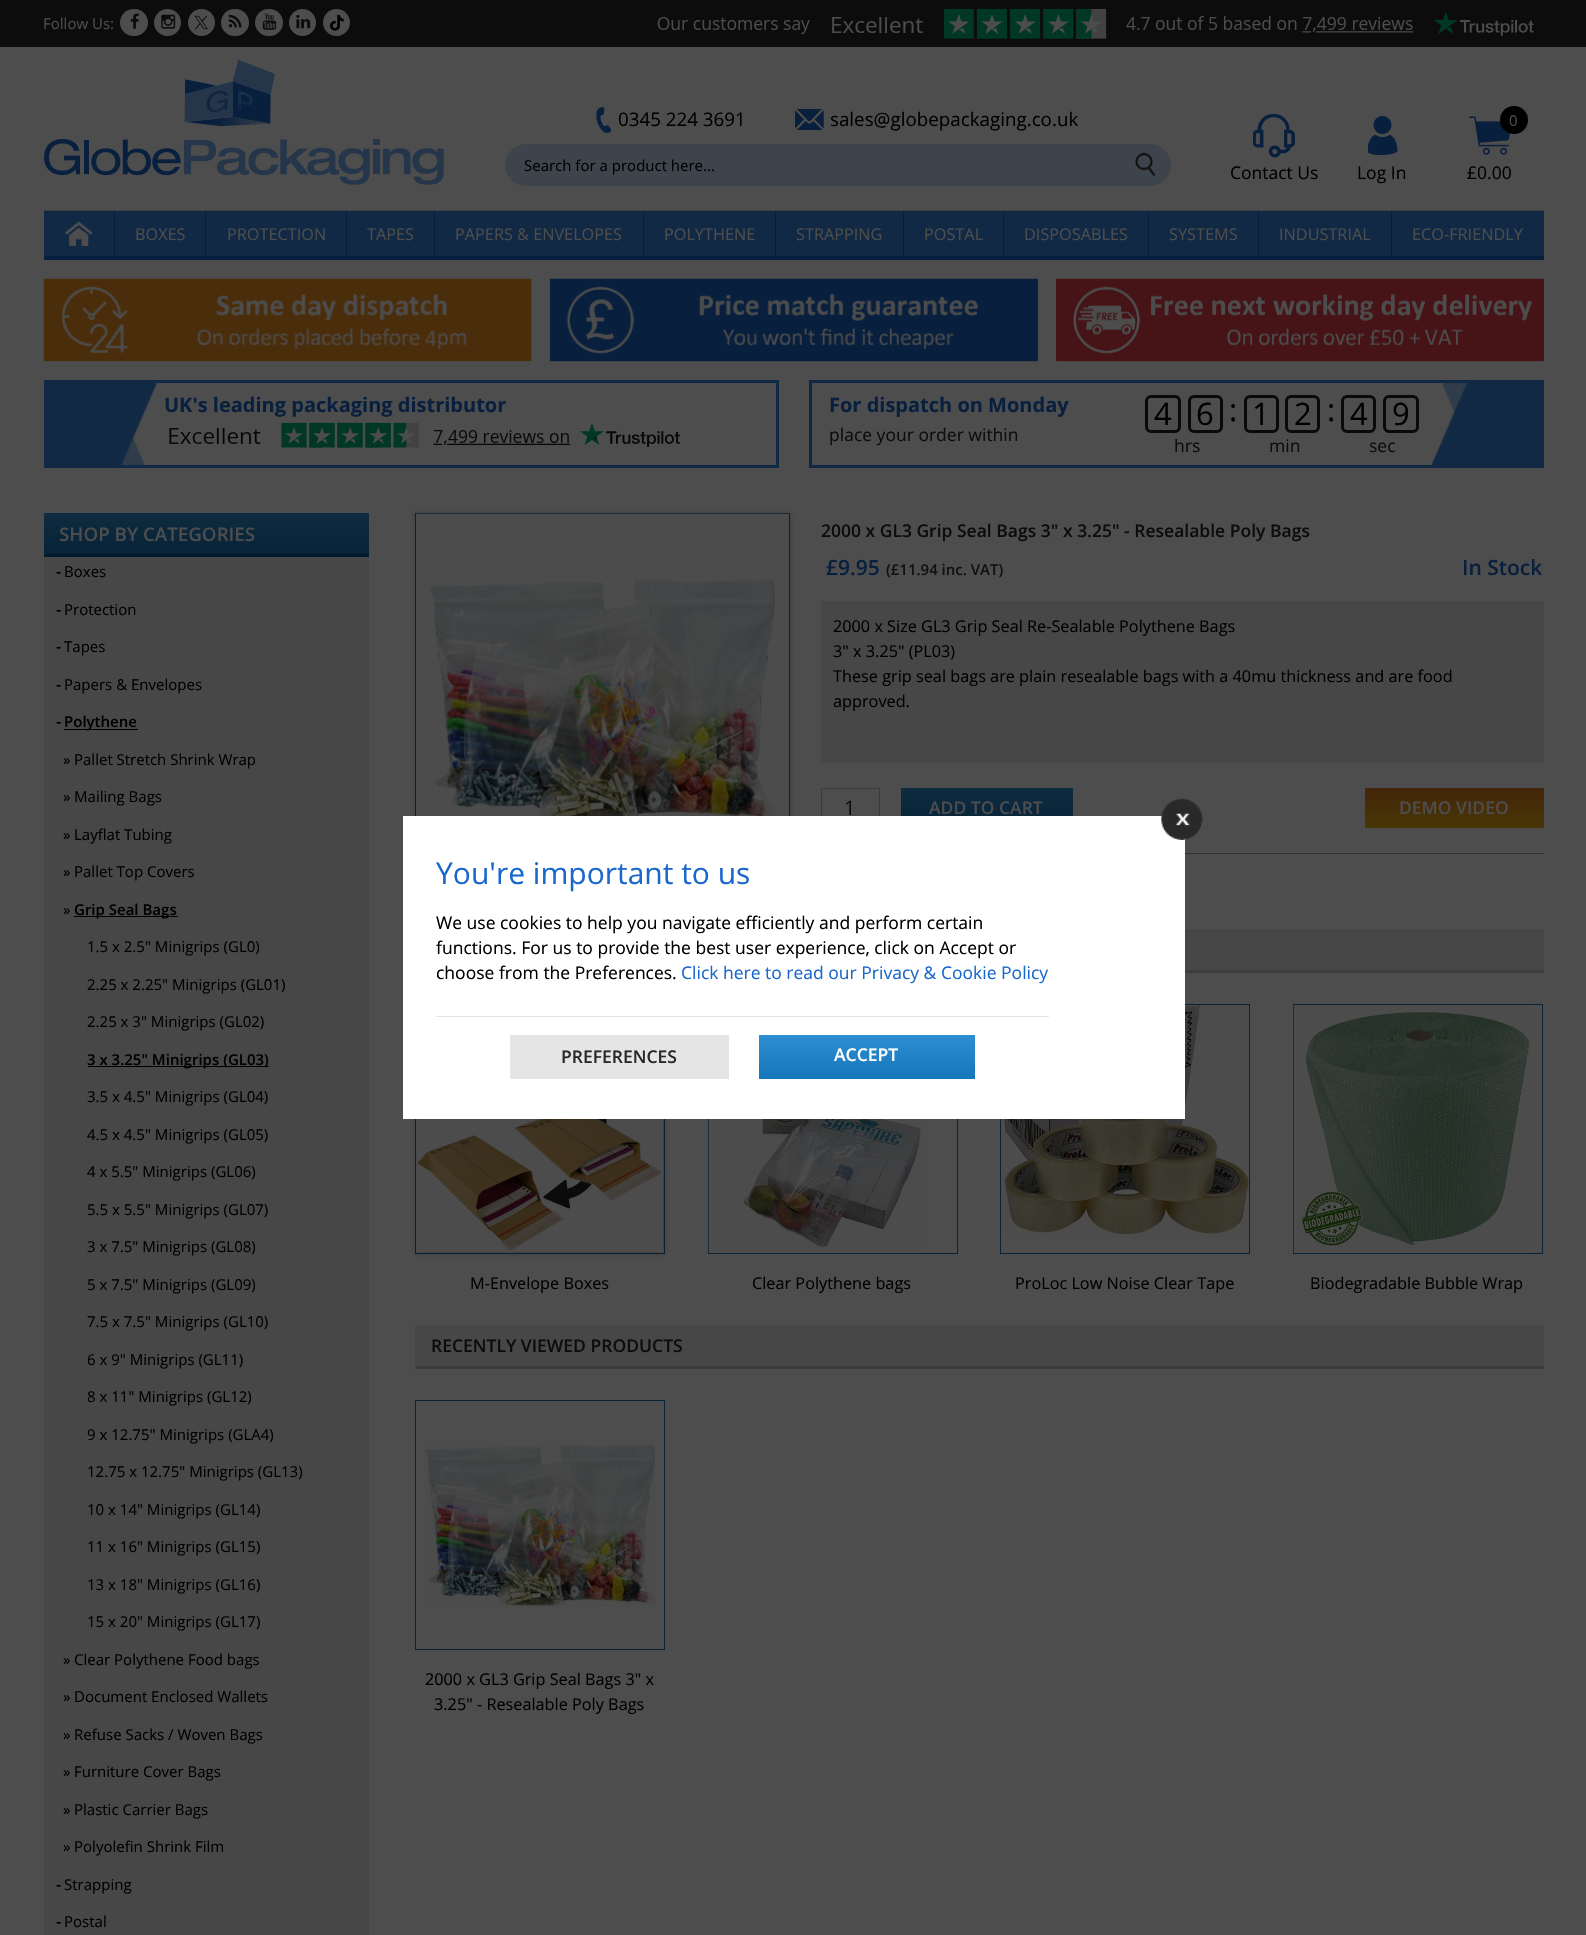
void draw(SkCanvas* canvas) {
    SkPaint paint;
    paint.setAntiAlias(true);
    auto face = [&](const char* family, int weight, float size, bool italic = false) {
        SkFontStyle style(weight, SkFontStyle::kNormal_Width,
            italic ? SkFontStyle::kItalic_Slant : SkFontStyle::kUpright_Slant);
        SkFont result(fontMgr->matchFamilyStyle(family, style), size);
        result.setSubpixel(true);
        return result;
    };
    auto write = [&](const char* s, float x, float y, const SkFont& font, SkColor color) {
        SkPaint ink(SkColor4f::FromColor(color));
        ink.setAntiAlias(true);
        canvas->drawString(s, x, y, font, ink);
    };
    auto block = [&](float x, float y, float w, float h, SkColor color) {
        SkPaint ink(SkColor4f::FromColor(color));
        ink.setAntiAlias(true);
        canvas->drawRect(SkRect::MakeXYWH(x, y, w, h), ink);
    };
    auto card = [&](float x, float y, float w, float h, float radius, SkColor color) {
        SkPaint ink(SkColor4f::FromColor(color));
        ink.setAntiAlias(true);
        canvas->drawRoundRect(SkRect::MakeXYWH(x, y, w, h), radius, radius, ink);
    };
    auto paste = [&](const char* path, float x, float y, float w, float h) {
        auto image = SkImages::DeferredFromEncodedData(SkData::MakeFromFileName(path));
        canvas->drawImageRect(image, SkRect::MakeXYWH(x, y, w, h), SkSamplingOptions());
    };
    canvas->clear(SkColorSetRGB(77, 77, 77));
    block(0, 0, 1586, 47, SkColorSetRGB(12, 12, 12));
    auto kFont1 = face("Open Sans", 400, 15);
    write("Follow Us:", 43, 29, kFont1, SkColorSetRGB(77, 77, 77));
    card(120, 9, 28, 27, 13.5f, SkColorSetRGB(77, 77, 77));
    paste("pic1.png", 130, 13, 9, 16);
    paint.setColor(SkColorSetRGB(77, 77, 77));
    canvas->drawCircle(167.5f, 22.5f, 13.5f, paint);
    paste("pic2.png", 161, 14, 15, 15);
    canvas->drawCircle(201.5f, 22.5f, 13.5f, paint);
    paste("pic3.png", 194, 15, 14, 15);
    card(221, 9, 28, 27, 13.5f, SkColorSetRGB(77, 77, 77));
    paste("pic4.png", 228, 14, 14, 14);
    card(255, 9, 28, 27, 13.5f, SkColorSetRGB(77, 77, 77));
    paste("pic5.png", 262, 13, 15, 17);
    canvas->drawCircle(302.5f, 22.5f, 13.5f, paint);
    paste("pic6.png", 296, 14, 15, 15);
    canvas->drawCircle(336.5f, 22.5f, 13.5f, paint);
    paste("pic7.png", 330, 15, 14, 16);
    paste("pic8.png", 657, 8, 877, 31);
    paste("pic9.png", 44, 60, 400, 125);
    paste("pic10.png", 596, 107, 15, 26);
    auto kFont2 = face("Open Sans", 400, 18.75f);
    write("0345 224 3691", 618, 126, kFont2, SK_ColorBLACK);
    paste("pic11.png", 795, 109, 29, 21);
    write("sales@globepackaging.co.uk", 830, 126, kFont2, SK_ColorBLACK);
    card(505, 144, 666, 42, 21, SkColorSetRGB(62, 68, 75));
    write("Search for a product here...", 524, 171, kFont1, SK_ColorBLACK);
    paint.setStyle(SkPaint::kStroke_Style);
    paint.setStrokeWidth(2.3f);
    paint.setColor(SkColorSetRGB(20, 20, 20));
    canvas->drawCircle(1144, 161.5f, 7.5f, paint);
    canvas->drawPath(SkPathBuilder().moveTo(1148.5f, 167.5f).lineTo(1154.5f, 175.5f).detach(), paint);
    paste("pic12.png", 1253, 114, 42, 44);
    auto kFont3 = face("Open Sans", 400, 17.5f);
    write("Contact Us", 1230, 179, kFont3, SK_ColorBLACK);
    paste("pic13.png", 1368, 116, 30, 40);
    write("Log In", 1357, 179, kFont3, SK_ColorBLACK);
    paste("pic14.png", 1469, 116, 41, 39);
    paint.setStyle(SkPaint::kFill_Style);
    paint.setColor(SK_ColorBLACK);
    canvas->drawCircle(1514, 120, 14, paint);
    write("0", 1509, 126, kFont1, SkColorSetRGB(77, 77, 77));
    write("£0.00", 1467, 179, kFont3, SK_ColorBLACK);
    block(44, 211, 1500, 45, SkColorSetRGB(17, 41, 68));
    block(44, 210, 1500, 1, SkColorSetRGB(61, 61, 61));
    block(44, 256, 1500, 4, SkColorSetRGB(7, 31, 62));
    block(114, 211, 1, 45, SkColorSetRGB(7, 31, 62));
    paste("pic15.png", 65, 221, 28, 25);
    block(205, 211, 1, 45, SkColorSetRGB(7, 31, 62));
    auto kFont4 = face("Open Sans", 400, 16.25f);
    write("BOXES", 135, 240, kFont4, SkColorSetRGB(77, 77, 77));
    block(346, 211, 1, 45, SkColorSetRGB(7, 31, 62));
    write("PROTECTION", 227, 240, kFont4, SkColorSetRGB(77, 77, 77));
    block(434, 211, 1, 45, SkColorSetRGB(7, 31, 62));
    write("TAPES", 367, 240, kFont4, SkColorSetRGB(77, 77, 77));
    block(643, 211, 1, 45, SkColorSetRGB(7, 31, 62));
    write("PAPERS & ENVELOPES", 455, 240, kFont4, SkColorSetRGB(77, 77, 77));
    block(775, 211, 1, 45, SkColorSetRGB(7, 31, 62));
    write("POLYTHENE", 664, 240, kFont4, SkColorSetRGB(77, 77, 77));
    block(903, 211, 1, 45, SkColorSetRGB(7, 31, 62));
    write("STRAPPING", 796, 240, kFont4, SkColorSetRGB(77, 77, 77));
    block(1003, 211, 1, 45, SkColorSetRGB(7, 31, 62));
    write("POSTAL", 924, 240, kFont4, SkColorSetRGB(77, 77, 77));
    block(1148, 211, 1, 45, SkColorSetRGB(7, 31, 62));
    write("DISPOSABLES", 1024, 240, kFont4, SkColorSetRGB(77, 77, 77));
    block(1258, 211, 1, 45, SkColorSetRGB(7, 31, 62));
    write("SYSTEMS", 1169, 240, kFont4, SkColorSetRGB(77, 77, 77));
    block(1391, 211, 1, 45, SkColorSetRGB(7, 31, 62));
    write("INDUSTRIAL", 1279, 240, kFont4, SkColorSetRGB(77, 77, 77));
    write("ECO-FRIENDLY", 1412, 240, kFont4, SkColorSetRGB(77, 77, 77));
    block(44, 279, 487, 82, SkColorSetRGB(74, 44, 9));
    paste("pic16.png", 43, 278, 489, 84);
    block(550, 279, 488, 82, SkColorSetRGB(8, 31, 62));
    paste("pic17.png", 549, 278, 489, 84);
    block(1056, 279, 488, 82, SkColorSetRGB(70, 20, 22));
    paste("pic18.png", 1056, 278, 488, 84);
    paint.setStyle(SkPaint::kStroke_Style);
    paint.setStrokeWidth(3);
    paint.setColor(SkColorSetRGB(17, 41, 68));
    canvas->drawRect(SkRect::MakeXYWH(45.5f, 381.5f, 732, 85), paint);
    paste("pic19.png", 47, 383, 111, 82);
    auto kFont5 = face("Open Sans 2", 700, 20);
    write("UK's leading packaging distributor", 164, 412, kFont5, SkColorSetRGB(8, 31, 62));
    paste("pic20.png", 169, 422, 511, 26);
    canvas->drawRect(SkRect::MakeXYWH(810.5f, 381.5f, 732, 85), paint);
    write("For dispatch on Monday", 829, 412, kFont5, SkColorSetRGB(8, 31, 62));
    write("place your order within", 829, 441, kFont3, SkColorSetRGB(12, 12, 12));
    paint.setColor(SkColorSetRGB(10, 10, 10));
    canvas->drawRoundRect(SkRect::MakeXYWH(1146.5f, 396.5f, 33, 35), 4.5f, 4.5f, paint);
    auto kFont6 = face("Open Sans", 400, 31);
    write("4", 1154, 425, kFont6, SK_ColorBLACK);
    canvas->drawRoundRect(SkRect::MakeXYWH(1189.5f, 396.5f, 32, 35), 4.5f, 4.5f, paint);
    write("6", 1196, 425, kFont6, SK_ColorBLACK);
    write("hrs", 1174, 452, kFont3, SkColorSetRGB(12, 12, 12));
    write(":", 1229, 421, kFont6, SK_ColorBLACK);
    canvas->drawRoundRect(SkRect::MakeXYWH(1245.5f, 396.5f, 32, 35), 4.5f, 4.5f, paint);
    write("1", 1252, 425, kFont6, SK_ColorBLACK);
    canvas->drawRoundRect(SkRect::MakeXYWH(1286.5f, 396.5f, 32, 35), 4.5f, 4.5f, paint);
    write("2", 1294, 425, kFont6, SK_ColorBLACK);
    write("min", 1269, 452, kFont3, SkColorSetRGB(12, 12, 12));
    write(":", 1327, 421, kFont6, SK_ColorBLACK);
    canvas->drawRoundRect(SkRect::MakeXYWH(1342.5f, 396.5f, 32, 35), 4.5f, 4.5f, paint);
    write("4", 1350, 425, kFont6, SK_ColorBLACK);
    canvas->drawRoundRect(SkRect::MakeXYWH(1384.5f, 396.5f, 33, 35), 4.5f, 4.5f, paint);
    write("9", 1392, 425, kFont6, SK_ColorBLACK);
    write("sec", 1369, 452, kFont3, SkColorSetRGB(12, 12, 12));
    paste("pic21.png", 1431, 383, 110, 82);
    block(44, 557, 325, 1378, SkColorSetRGB(71, 71, 71));
    paint.setStyle(SkPaint::kFill_Style);
    {
        const SkColor colors[] = {SkColorSetRGB(14, 43, 63), SkColorSetRGB(6, 35, 56)};
        const float stops[] = {0, 1};
        const SkPoint ends[] = {{206, 513}, {206, 554}};
        paint.setShader(SkGradientShader::MakeLinear(ends, colors, stops, 2, SkTileMode::kClamp));
        paint.setAlpha(255);
    }
    canvas->drawRect(SkRect::MakeXYWH(44, 513, 325, 41), paint);
    block(44, 554, 325, 3, SkColorSetRGB(0, 26, 44));
    auto kFont7 = face("Open Sans", 600, 18.75f);
    write("SHOP BY CATEGORIES", 59, 541, kFont7, SkColorSetRGB(77, 77, 77));
    auto kFont8 = face("Open Sans", 700, 15);
    write("-", 56, 577, kFont8, SK_ColorBLACK);
    write("Boxes", 64, 577, kFont1, SK_ColorBLACK);
    write("-", 56, 615, kFont8, SK_ColorBLACK);
    write("Protection", 64, 615, kFont1, SK_ColorBLACK);
    write("-", 56, 652, kFont8, SK_ColorBLACK);
    write("Tapes", 64, 652, kFont1, SK_ColorBLACK);
    write("-", 56, 690, kFont8, SK_ColorBLACK);
    write("Papers & Envelopes", 64, 690, kFont1, SK_ColorBLACK);
    write("-", 56, 727, kFont8, SK_ColorBLACK);
    block(64, 729, 74, 1, SK_ColorBLACK);
    auto kFont9 = face("Open Sans", 600, 15);
    write("Polythene", 64, 727, kFont9, SK_ColorBLACK);
    write("»", 63, 765, kFont1, SK_ColorBLACK);
    write("Pallet Stretch Shrink Wrap", 74, 765, kFont1, SK_ColorBLACK);
    write("»", 63, 802, kFont1, SK_ColorBLACK);
    write("Mailing Bags", 74, 802, kFont1, SK_ColorBLACK);
    write("»", 63, 840, kFont1, SK_ColorBLACK);
    write("Layflat Tubing", 74, 840, kFont1, SK_ColorBLACK);
    write("»", 63, 877, kFont1, SK_ColorBLACK);
    write("Pallet Top Covers", 74, 877, kFont1, SK_ColorBLACK);
    write("»", 63, 915, kFont1, SK_ColorBLACK);
    block(74, 916, 104, 1, SK_ColorBLACK);
    write("Grip Seal Bags", 74, 915, kFont9, SK_ColorBLACK);
    write("1.5 x 2.5\" Minigrips (GL0)", 87, 952, kFont1, SK_ColorBLACK);
    write("2.25 x 2.25\" Minigrips (GL01)", 87, 990, kFont1, SK_ColorBLACK);
    write("2.25 x 3\" Minigrips (GL02)", 87, 1027, kFont1, SK_ColorBLACK);
    block(88, 1066, 181, 1, SK_ColorBLACK);
    write("3 x 3.25\" Minigrips (GL03)", 87, 1065, kFont9, SK_ColorBLACK);
    write("3.5 x 4.5\" Minigrips (GL04)", 87, 1102, kFont1, SK_ColorBLACK);
    write("4.5 x 4.5\" Minigrips (GL05)", 87, 1140, kFont1, SK_ColorBLACK);
    write("4 x 5.5\" Minigrips (GL06)", 87, 1177, kFont1, SK_ColorBLACK);
    write("5.5 x 5.5\" Minigrips (GL07)", 87, 1215, kFont1, SK_ColorBLACK);
    write("3 x 7.5\" Minigrips (GL08)", 87, 1252, kFont1, SK_ColorBLACK);
    write("5 x 7.5\" Minigrips (GL09)", 87, 1290, kFont1, SK_ColorBLACK);
    write("7.5 x 7.5\" Minigrips (GL10)", 87, 1327, kFont1, SK_ColorBLACK);
    write("6 x 9\" Minigrips (GL11)", 87, 1365, kFont1, SK_ColorBLACK);
    write("8 x 11\" Minigrips (GL12)", 87, 1402, kFont1, SK_ColorBLACK);
    write("9 x 12.75\" Minigrips (GLA4)", 87, 1440, kFont1, SK_ColorBLACK);
    write("12.75 x 12.75\" Minigrips (GL13)", 87, 1477, kFont1, SK_ColorBLACK);
    write("10 x 14\" Minigrips (GL14)", 87, 1515, kFont1, SK_ColorBLACK);
    write("11 x 16\" Minigrips (GL15)", 87, 1552, kFont1, SK_ColorBLACK);
    write("13 x 18\" Minigrips (GL16)", 87, 1590, kFont1, SK_ColorBLACK);
    write("15 x 20\" Minigrips (GL17)", 87, 1627, kFont1, SK_ColorBLACK);
    write("»", 63, 1665, kFont1, SK_ColorBLACK);
    write("Clear Polythene Food bags", 74, 1665, kFont1, SK_ColorBLACK);
    write("»", 63, 1702, kFont1, SK_ColorBLACK);
    write("Document Enclosed Wallets", 74, 1702, kFont1, SK_ColorBLACK);
    write("»", 63, 1740, kFont1, SK_ColorBLACK);
    write("Refuse Sacks / Woven Bags", 74, 1740, kFont1, SK_ColorBLACK);
    write("»", 63, 1777, kFont1, SK_ColorBLACK);
    write("Furniture Cover Bags", 74, 1777, kFont1, SK_ColorBLACK);
    write("»", 63, 1815, kFont1, SK_ColorBLACK);
    write("Plastic Carrier Bags", 74, 1815, kFont1, SK_ColorBLACK);
    write("»", 63, 1852, kFont1, SK_ColorBLACK);
    write("Polyolefin Shrink Film", 74, 1852, kFont1, SK_ColorBLACK);
    write("-", 56, 1890, kFont8, SK_ColorBLACK);
    write("Strapping", 64, 1890, kFont1, SK_ColorBLACK);
    write("-", 56, 1927, kFont8, SK_ColorBLACK);
    write("Postal", 64, 1927, kFont1, SK_ColorBLACK);
    paint.setShader(nullptr);
    paint.setColor(SkColorSetRGB(61, 61, 61));
    paint.setMaskFilter(SkMaskFilter::MakeBlur(kNormal_SkBlurStyle, 3));
    canvas->drawRect(SkRect::MakeXYWH(415, 513, 375, 375), paint);
    paint.setMaskFilter(nullptr);
    paint.setStyle(SkPaint::kStroke_Style);
    paint.setStrokeWidth(1);
    paint.setColor(SkColorSetRGB(6, 35, 56));
    canvas->drawRect(SkRect::MakeXYWH(415.5f, 513.5f, 374, 374), paint);
    paste("pic22.png", 416, 513, 373, 303);
    auto kFont10 = face("Open Sans", 600, 17.5f);
    write("2000 x GL3 Grip Seal Bags 3\" x 3.25\" - Resealable Poly Bags", 821, 537, kFont10, SkColorSetRGB(12, 12, 12));
    auto kFont11 = face("Open Sans", 600, 21);
    write("£9.95", 826, 575, kFont11, SkColorSetRGB(8, 31, 62));
    write("(£11.94 inc. VAT)", 886, 575, kFont9, SkColorSetRGB(18, 17, 17));
    write("In Stock", 1462, 575, kFont11, SkColorSetRGB(8, 31, 62));
    block(821, 601, 723, 162, SkColorSetRGB(71, 71, 71));
    write("2000 x Size GL3 Grip Seal Re-Sealable Polythene Bags", 833, 632, kFont4, SK_ColorBLACK);
    write("3\" x 3.25\" (PL03)", 833, 657, kFont4, SK_ColorBLACK);
    write("These grip seal bags are plain resealable bags with a 40mu thickness and are food", 833, 682, kFont4, SK_ColorBLACK);
    write("approved.", 833, 707, kFont4, SK_ColorBLACK);
    block(1185, 853, 359, 1, SkColorSetRGB(50, 50, 50));
    paint.setColor(SkColorSetRGB(59, 59, 59));
    canvas->drawRect(SkRect::MakeXYWH(821.5f, 788.5f, 58, 39), paint);
    auto kFont12 = face("Open Sans", 400, 20);
    write("1", 844, 815, kFont12, SkColorSetRGB(12, 12, 12));
    paint.setStyle(SkPaint::kFill_Style);
    {
        const SkColor colors[] = {SkColorSetRGB(14, 43, 63), SkColorSetRGB(6, 35, 56)};
        const float stops[] = {0, 1};
        const SkPoint ends[] = {{987, 788}, {987, 828}};
        paint.setShader(SkGradientShader::MakeLinear(ends, colors, stops, 2, SkTileMode::kClamp));
        paint.setAlpha(255);
    }
    canvas->drawRect(SkRect::MakeXYWH(901, 788, 172, 28), paint);
    write("ADD TO CART", 929, 814, kFont10, SkColorSetRGB(77, 77, 77));
    {
        const SkColor colors[] = {SkColorSetRGB(68, 38, 11), SkColorSetRGB(72, 54, 5)};
        const float stops[] = {0, 1};
        const SkPoint ends[] = {{1454, 788}, {1454, 828}};
        paint.setShader(SkGradientShader::MakeLinear(ends, colors, stops, 2, SkTileMode::kClamp));
        paint.setAlpha(255);
    }
    canvas->drawRect(SkRect::MakeXYWH(1365, 788, 179, 40), paint);
    write("DEMO VIDEO", 1399, 814, kFont10, SkColorSetRGB(77, 77, 77));
    block(1185, 929, 359, 41, SkColorSetRGB(71, 71, 71));
    block(1185, 970, 359, 3, SkColorSetRGB(61, 61, 61));
    paint.setShader(nullptr);
    paint.setColor(SkColorSetRGB(61, 61, 61));
    paint.setMaskFilter(SkMaskFilter::MakeBlur(kNormal_SkBlurStyle, 3));
    canvas->drawRect(SkRect::MakeXYWH(415, 1004, 250, 250), paint);
    paint.setMaskFilter(nullptr);
    paint.setStyle(SkPaint::kStroke_Style);
    paint.setColor(SkColorSetRGB(6, 35, 56));
    canvas->drawRect(SkRect::MakeXYWH(415.5f, 1004.5f, 249, 249), paint);
    paste("pic23.png", 416, 1119, 247, 133);
    write("M-Envelope Boxes", 470, 1289, kFont4, SK_ColorBLACK);
    canvas->drawRect(SkRect::MakeXYWH(708.5f, 1004.5f, 249, 249), paint);
    paste("pic24.png", 708, 1119, 214, 134);
    write("Clear Polythene bags", 752, 1289, kFont4, SK_ColorBLACK);
    canvas->drawRect(SkRect::MakeXYWH(1000.5f, 1004.5f, 249, 249), paint);
    paste("pic25.png", 1001, 1005, 248, 233);
    write("ProLoc Low Noise Clear Tape", 1015, 1289, kFont4, SK_ColorBLACK);
    canvas->drawRect(SkRect::MakeXYWH(1293.5f, 1004.5f, 249, 249), paint);
    paste("pic26.png", 1293, 1005, 237, 248);
    write("Biodegradable Bubble Wrap", 1310, 1289, kFont4, SK_ColorBLACK);
    block(415, 1325, 1129, 41, SkColorSetRGB(71, 71, 71));
    block(415, 1366, 1129, 3, SkColorSetRGB(61, 61, 61));
    write("RECENTLY VIEWED PRODUCTS", 431, 1352, kFont10, SkColorSetRGB(12, 12, 12));
    canvas->drawRect(SkRect::MakeXYWH(415.5f, 1400.5f, 249, 249), paint);
    paste("pic27.png", 425, 1444, 231, 163);
    write("2000 x GL3 Grip Seal Bags 3\" x", 425, 1685, kFont4, SK_ColorBLACK);
    write("3.25\" - Resealable Poly Bags", 434, 1710, kFont4, SK_ColorBLACK);
    block(403, 816, 782, 303, SK_ColorWHITE);
    paste("pic28.png", 1161, 798, 42, 42);
    auto kFont13 = face("Open Sans", 400, 30);
    write("You're important to us", 436, 884, kFont13, SkColorSetRGB(26, 104, 205));
    write("We use cookies to help you navigate efficiently and perform certain", 436, 929, kFont3, SK_ColorBLACK);
    write("functions. For us to provide the best user experience, click on Accept or", 436, 954, kFont3, SK_ColorBLACK);
    write("choose from the Preferences.", 436, 979, kFont3, SK_ColorBLACK);
    write("Click here to read our Privacy & Cookie Policy", 681, 979, kFont3, SkColorSetRGB(26, 104, 205));
    block(436, 1016, 613, 1, SkColorSetRGB(229, 229, 229));
    block(510, 1035, 219, 44, SkColorSetRGB(229, 229, 229));
    write("PREFERENCES", 561, 1063, kFont10, SkColorSetRGB(41, 41, 41));
    paint.setStyle(SkPaint::kFill_Style);
    {
        const SkColor colors[] = {SkColorSetRGB(45, 142, 210), SkColorSetRGB(21, 118, 186)};
        const float stops[] = {0, 1};
        const SkPoint ends[] = {{867, 1035}, {867, 1079}};
        paint.setShader(SkGradientShader::MakeLinear(ends, colors, stops, 2, SkTileMode::kClamp));
        paint.setAlpha(255);
    }
    canvas->drawRect(SkRect::MakeXYWH(759, 1035, 216, 44), paint);
    write("ACCEPT", 834, 1061, kFont10, SK_ColorWHITE);
}
